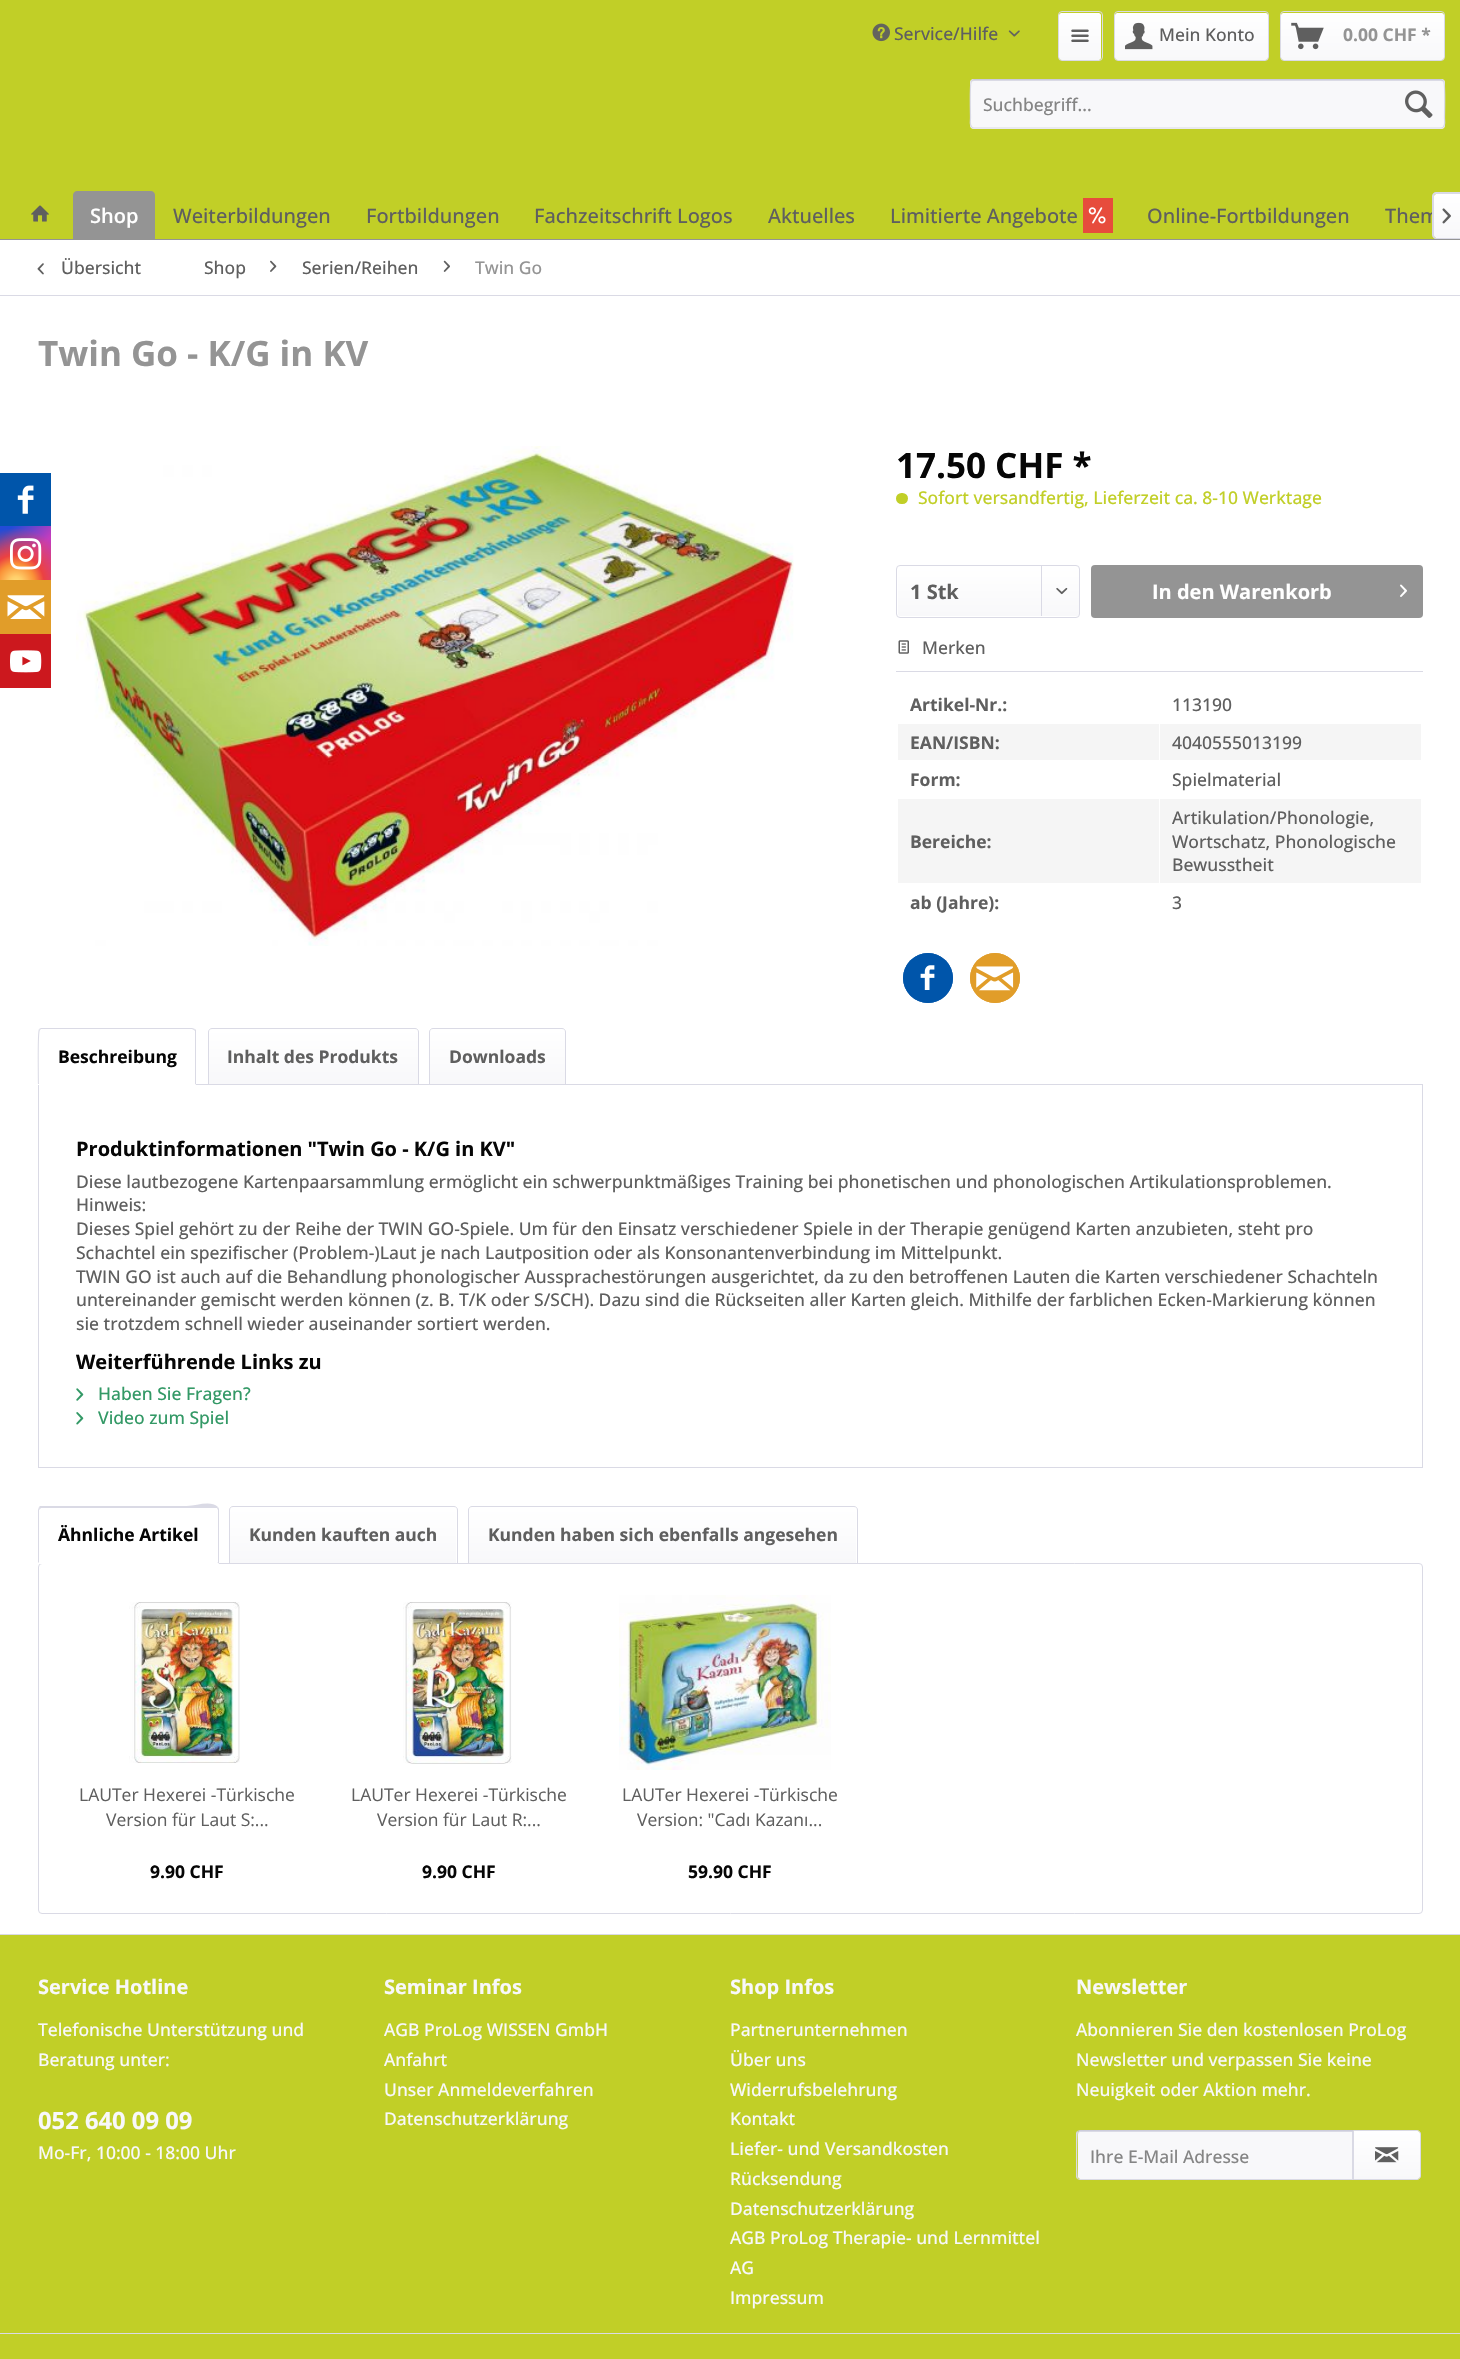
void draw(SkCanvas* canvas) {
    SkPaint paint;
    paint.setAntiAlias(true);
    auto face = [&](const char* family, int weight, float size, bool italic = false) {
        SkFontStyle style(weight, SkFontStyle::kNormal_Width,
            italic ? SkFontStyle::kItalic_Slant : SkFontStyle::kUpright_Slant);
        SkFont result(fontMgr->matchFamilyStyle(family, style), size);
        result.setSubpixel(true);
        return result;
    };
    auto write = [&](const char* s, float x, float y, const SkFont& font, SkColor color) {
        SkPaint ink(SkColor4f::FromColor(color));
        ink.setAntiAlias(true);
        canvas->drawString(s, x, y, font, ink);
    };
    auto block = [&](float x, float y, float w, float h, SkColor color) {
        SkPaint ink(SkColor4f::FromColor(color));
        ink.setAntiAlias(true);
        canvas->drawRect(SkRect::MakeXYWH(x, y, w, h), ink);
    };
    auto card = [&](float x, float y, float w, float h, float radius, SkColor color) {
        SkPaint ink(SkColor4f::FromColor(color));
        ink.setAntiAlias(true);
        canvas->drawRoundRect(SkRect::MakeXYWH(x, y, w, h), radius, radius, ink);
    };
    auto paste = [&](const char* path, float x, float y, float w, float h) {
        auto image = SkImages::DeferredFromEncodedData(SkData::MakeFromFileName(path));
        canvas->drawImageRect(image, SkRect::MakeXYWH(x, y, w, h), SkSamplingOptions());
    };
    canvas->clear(SkColorSetRGB(193, 207, 39));
    block(0, 240, 1460, 1694, SK_ColorWHITE);
    block(0, 473, 51, 53, SkColorSetRGB(0, 85, 170));
    paste("pic1.png", 17, 485, 17, 29);
    {
        const SkColor colors[] = {SkColorSetRGB(35, 75, 215), SkColorSetRGB(195, 60, 190)};
        const float stops[] = {0.12f, 0.58f};
        const SkPoint ends[] = {{-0.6f, 527}, {52, 579}};
        paint.setShader(SkGradientShader::MakeLinear(ends, colors, stops, 2, SkTileMode::kClamp));
        paint.setAlpha(255);
    }
    canvas->drawRect(SkRect::MakeXYWH(0, 526, 51, 54), paint);
    {
        const SkColor colors[] = {SkColorSetRGB(255, 225, 125), SkColorSetRGB(255, 205, 105), SkColorSetRGB(250, 145, 55), SkColorSetRGB(235, 65, 65), SkColorSetARGB(0, 235, 65, 65)};
        const float stops[] = {0, 0.1f, 0.28f, 0.42f, 0.82f};
        paint.setShader(SkGradientShader::MakeRadial({16, 583}, 67, colors, stops, 5, SkTileMode::kClamp));
        paint.setAlpha(255);
    }
    canvas->drawRect(SkRect::MakeXYWH(0, 529, 51, 51), paint);
    paste("pic2.png", 10, 538, 32, 32);
    block(0, 580, 51, 54, SkColorSetRGB(225, 157, 41));
    paste("pic3.png", 7, 595, 38, 24);
    block(0, 634, 51, 54, SkColorSetRGB(204, 24, 30));
    paste("pic4.png", 10, 650, 32, 23);
    paste("pic5.png", 872, 23, 18, 19);
    auto kFont1 = face("Open Sans", 500, 17.5f);
    write("Service/Hilfe", 894, 40, kFont1, SkColorSetRGB(95, 95, 95));
    paste("pic6.png", 1008, 30, 12, 7);
    {
        const SkColor colors[] = {SK_ColorWHITE, SkColorSetRGB(248, 248, 250)};
        const float stops[] = {0, 1};
        const SkPoint ends[] = {{1080, 12}, {1080, 60}};
        paint.setShader(SkGradientShader::MakeLinear(ends, colors, stops, 2, SkTileMode::kClamp));
        paint.setAlpha(255);
    }
    canvas->drawRoundRect(SkRect::MakeXYWH(1059, 13, 42, 47), 2.5f, 2.5f, paint);
    paint.setStyle(SkPaint::kStroke_Style);
    paint.setStrokeWidth(1);
    paint.setShader(nullptr);
    paint.setColor(SkColorSetRGB(218, 218, 229));
    canvas->drawRoundRect(SkRect::MakeXYWH(1058.5f, 11.5f, 44, 49), 3.5f, 3.5f, paint);
    paste("pic7.png", 1071, 29, 18, 13);
    paint.setStyle(SkPaint::kFill_Style);
    {
        const SkColor colors[] = {SK_ColorWHITE, SkColorSetRGB(248, 248, 250)};
        const float stops[] = {0, 1};
        const SkPoint ends[] = {{1191, 12}, {1191, 60}};
        paint.setShader(SkGradientShader::MakeLinear(ends, colors, stops, 2, SkTileMode::kClamp));
        paint.setAlpha(255);
    }
    canvas->drawRoundRect(SkRect::MakeXYWH(1115, 13, 153, 47), 2.5f, 2.5f, paint);
    paint.setStyle(SkPaint::kStroke_Style);
    paint.setShader(nullptr);
    paint.setColor(SkColorSetRGB(218, 218, 229));
    canvas->drawRoundRect(SkRect::MakeXYWH(1114.5f, 11.5f, 154, 49), 3.5f, 3.5f, paint);
    paste("pic8.png", 1125, 22, 28, 28);
    write("Mein Konto", 1159, 41, kFont1, SkColorSetRGB(95, 95, 95));
    paint.setStyle(SkPaint::kFill_Style);
    {
        const SkColor colors[] = {SK_ColorWHITE, SkColorSetRGB(248, 248, 250)};
        const float stops[] = {0, 1};
        const SkPoint ends[] = {{1363, 12}, {1363, 60}};
        paint.setShader(SkGradientShader::MakeLinear(ends, colors, stops, 2, SkTileMode::kClamp));
        paint.setAlpha(255);
    }
    canvas->drawRoundRect(SkRect::MakeXYWH(1281, 13, 163, 47), 2.5f, 2.5f, paint);
    paint.setStyle(SkPaint::kStroke_Style);
    paint.setShader(nullptr);
    paint.setColor(SkColorSetRGB(218, 218, 229));
    canvas->drawRoundRect(SkRect::MakeXYWH(1280.5f, 11.5f, 164, 49), 3.5f, 3.5f, paint);
    paste("pic9.png", 1291, 22, 33, 28);
    auto kFont2 = face("Open Sans", 700, 17.5f);
    write("0.00 CHF *", 1343, 41, kFont2, SkColorSetRGB(148, 148, 148));
    card(970, 79, 475, 50, 4, SkColorSetRGB(248, 248, 250));
    paint.setStyle(SkPaint::kFill_Style);
    canvas->drawPath(SkPathBuilder().moveTo(974, 81).lineTo(1441, 81).cubicTo(1443, 81, 1444, 82, 1444, 84).cubicTo(1444, 82, 1444, 80, 1442, 80).lineTo(974, 80).lineTo(971, 81).lineTo(971, 84).cubicTo(971, 82, 972, 81, 974, 81).close().detach(), paint);
    paint.setStyle(SkPaint::kStroke_Style);
    paint.setStrokeWidth(1.2f);
    paint.setColor(SkColorSetRGB(203, 203, 219));
    canvas->drawPath(SkPathBuilder().moveTo(971.5f, 80.5f).lineTo(974, 79.5f).lineTo(1441, 79.5f).lineTo(1443.5f, 80.5f).detach(), paint);
    paint.setColor(SkColorSetRGB(218, 218, 229));
    canvas->drawPath(SkPathBuilder().moveTo(1443.5f, 80.5f).cubicTo(1445.5f, 82.5f, 1444.5f, 113, 1444.5f, 118).cubicTo(1444.5f, 120, 1446, 128, 1441, 128).lineTo(974, 128).cubicTo(969, 128, 970.5f, 120, 970.5f, 118).cubicTo(970.5f, 113, 969.5f, 82.5f, 971.5f, 80.5f).detach(), paint);
    write("Suchbegriff...", 983, 111, kFont1, SkColorSetRGB(133, 133, 133));
    paste("pic10.png", 1405, 90, 28, 28);
    block(0, 239, 1460, 1, SkColorSetRGB(148, 148, 148));
    paste("pic11.png", 31, 205, 18, 17);
    paint.setStyle(SkPaint::kFill_Style);
    paint.setColor(SkColorSetRGB(148, 148, 148));
    canvas->drawPath(SkPathBuilder().moveTo(77, 191).lineTo(151, 191).cubicTo(153, 191, 155, 193, 155, 195).lineTo(155, 239).lineTo(73, 239).lineTo(73, 195).cubicTo(73, 193, 75, 191, 77, 191).close().detach(), paint);
    auto kFont3 = face("Open Sans", 600, 20);
    write("Shop", 90, 223, kFont3, SK_ColorWHITE);
    auto kFont4 = face("Open Sans", 500, 20);
    write("Weiterbildungen", 173, 223, kFont4, SkColorSetRGB(95, 95, 95));
    write("Fortbildungen", 366, 223, kFont4, SkColorSetRGB(95, 95, 95));
    write("Fachzeitschrift Logos", 534, 223, kFont4, SkColorSetRGB(95, 95, 95));
    write("Aktuelles", 768, 223, kFont4, SkColorSetRGB(95, 95, 95));
    write("Limitierte Angebote", 890, 223, kFont4, SkColorSetRGB(95, 95, 95));
    block(1083, 198, 30, 35, SkColorSetRGB(231, 76, 60));
    paste("pic12.png", 1088, 207, 18, 17);
    write("Online-Fortbildungen", 1147, 223, kFont4, SkColorSetRGB(95, 95, 95));
    write("Them", 1385, 223, kFont4, SkColorSetRGB(95, 95, 95));
    {
        const SkColor colors[] = {SK_ColorWHITE, SkColorSetRGB(248, 248, 250)};
        const float stops[] = {0, 1};
        const SkPoint ends[] = {{1447, 194}, {1447, 238}};
        paint.setShader(SkGradientShader::MakeLinear(ends, colors, stops, 2, SkTileMode::kClamp));
        paint.setAlpha(255);
    }
    canvas->drawPath(SkPathBuilder().moveTo(1436.5f, 194).lineTo(1460, 194).lineTo(1460, 238).lineTo(1436.5f, 238).cubicTo(1435, 238, 1434, 237, 1434, 235.5f).lineTo(1434, 196.5f).cubicTo(1434, 195, 1435, 194, 1436.5f, 194).close().detach(), paint);
    paint.setShader(nullptr);
    paint.setColor(SkColorSetRGB(218, 218, 229));
    canvas->drawPath(SkPathBuilder(SkPathFillType::kEvenOdd).moveTo(1436, 192).lineTo(1460, 192).lineTo(1460, 239).lineTo(1436, 239).cubicTo(1434, 239, 1432, 237, 1432, 235).lineTo(1432, 196).cubicTo(1432, 194, 1434, 192, 1436, 192).close().moveTo(1436, 194).lineTo(1460, 194).lineTo(1460, 238).lineTo(1436, 238).cubicTo(1435, 238, 1434, 236, 1434, 235).lineTo(1434, 196).cubicTo(1434, 195, 1435, 194, 1436, 194).close().detach(), paint);
    paste("pic13.png", 1442, 208, 9, 16);
    block(0, 295, 1460, 1, SkColorSetRGB(218, 218, 229));
    paste("pic14.png", 37, 263, 7, 12);
    write("Übersicht", 61, 274, kFont1, SkColorSetRGB(95, 95, 95));
    write("Shop", 204, 274, kFont1, SkColorSetRGB(95, 95, 95));
    paste("pic15.png", 270, 260, 7, 12);
    write("Serien/Reihen", 302, 274, kFont1, SkColorSetRGB(95, 95, 95));
    paste("pic16.png", 443, 260, 7, 12);
    write("Twin Go", 475, 274, kFont1, SkColorSetRGB(148, 148, 148));
    auto kFont5 = face("Open Sans", 700, 35);
    write("Twin Go - K/G in KV", 38, 366, kFont5, SkColorSetRGB(148, 148, 148));
    paste("pic17.png", 76, 446, 718, 500);
    write("17.50 CHF *", 896, 478, kFont5, SkColorSetRGB(6, 6, 6));
    card(896, 493, 12, 11, 5.5f, SkColorSetRGB(193, 207, 39));
    write("Sofort versandfertig, Lieferzeit ca. 8-10 Werktage", 918, 504, kFont1, SkColorSetRGB(193, 207, 39));
    {
        const SkColor colors[] = {SK_ColorWHITE, SkColorSetRGB(248, 248, 250)};
        const float stops[] = {0, 1};
        const SkPoint ends[] = {{988, 566}, {988, 616}};
        paint.setShader(SkGradientShader::MakeLinear(ends, colors, stops, 2, SkTileMode::kClamp));
        paint.setAlpha(255);
    }
    canvas->drawRoundRect(SkRect::MakeXYWH(898, 566, 181, 50), 2.5f, 2.5f, paint);
    paint.setStyle(SkPaint::kStroke_Style);
    paint.setStrokeWidth(1);
    paint.setShader(nullptr);
    paint.setColor(SkColorSetRGB(218, 218, 229));
    canvas->drawRoundRect(SkRect::MakeXYWH(896.5f, 565.5f, 183, 52), 3.5f, 3.5f, paint);
    auto kFont6 = face("Open Sans", 700, 20);
    write("1 Stk", 910, 599, kFont6, SkColorSetRGB(95, 95, 95));
    block(1041, 566, 1, 50, SkColorSetRGB(218, 218, 229));
    paste("pic18.png", 1056, 587, 12, 8);
    card(1091, 565, 332, 53, 4, SkColorSetRGB(148, 148, 148));
    write("In den Warenkorb", 1152, 599, kFont6, SK_ColorWHITE);
    paste("pic19.png", 1400, 584, 7, 13);
    block(896, 671, 527, 1, SkColorSetRGB(218, 218, 229));
    paste("pic20.png", 898, 640, 11, 14);
    write("Merken", 922, 654, kFont1, SkColorSetRGB(95, 95, 95));
    write("Artikel-Nr.:", 910, 711, kFont2, SkColorSetRGB(95, 95, 95));
    write("113190", 1172, 711, kFont1, SkColorSetRGB(95, 95, 95));
    block(898, 724, 261, 36, SkColorSetRGB(245, 245, 245));
    write("EAN/ISBN:", 910, 749, kFont2, SkColorSetRGB(95, 95, 95));
    block(1160, 724, 261, 36, SkColorSetRGB(245, 245, 245));
    write("4040555013199", 1172, 749, kFont1, SkColorSetRGB(95, 95, 95));
    write("Form:", 910, 786, kFont2, SkColorSetRGB(95, 95, 95));
    write("Spielmaterial", 1172, 786, kFont1, SkColorSetRGB(95, 95, 95));
    block(898, 799, 261, 84, SkColorSetRGB(245, 245, 245));
    write("Bereiche:", 910, 848, kFont2, SkColorSetRGB(95, 95, 95));
    block(1160, 799, 261, 84, SkColorSetRGB(245, 245, 245));
    write("Artikulation/Phonologie,", 1172, 824, kFont1, SkColorSetRGB(95, 95, 95));
    write("Wortschatz, Phonologische", 1172, 848, kFont1, SkColorSetRGB(95, 95, 95));
    write("Bewusstheit", 1172, 871, kFont1, SkColorSetRGB(95, 95, 95));
    write("ab (Jahre):", 910, 909, kFont2, SkColorSetRGB(95, 95, 95));
    write("3", 1172, 909, kFont1, SkColorSetRGB(95, 95, 95));
    paint.setColor(SkColorSetRGB(0, 85, 170));
    canvas->drawCircle(928, 978, 24.5f, paint);
    paint.setStyle(SkPaint::kFill_Style);
    canvas->drawCircle(928, 978, 25, paint);
    paste("pic21.png", 920, 965, 15, 25);
    paint.setStyle(SkPaint::kStroke_Style);
    paint.setColor(SkColorSetRGB(225, 157, 41));
    canvas->drawCircle(995, 978, 24.5f, paint);
    paint.setStyle(SkPaint::kFill_Style);
    canvas->drawCircle(995, 978, 25, paint);
    paste("pic22.png", 976, 966, 38, 25);
    paint.setStyle(SkPaint::kStroke_Style);
    paint.setColor(SkColorSetRGB(218, 218, 229));
    canvas->drawRect(SkRect::MakeXYWH(38.5f, 1084.5f, 1384, 383), paint);
    paint.setStyle(SkPaint::kFill_Style);
    paint.setColor(SK_ColorWHITE);
    canvas->drawPath(SkPathBuilder().moveTo(42, 1028).lineTo(192, 1028).cubicTo(194, 1028, 196, 1030, 196, 1032).lineTo(196, 1085).lineTo(38, 1085).lineTo(38, 1032).cubicTo(38, 1030, 40, 1028, 42, 1028).close().detach(), paint);
    paint.setColor(SkColorSetRGB(218, 218, 229));
    canvas->drawPath(SkPathBuilder().moveTo(41, 1028).lineTo(39, 1029).lineTo(40, 1030).lineTo(41, 1029).lineTo(192, 1029).lineTo(194, 1030).lineTo(195, 1029).lineTo(192, 1028).close().detach(), paint);
    canvas->drawPath(SkPathBuilder().moveTo(196, 1085).lineTo(196, 1030).lineTo(195, 1029).lineTo(194, 1030).lineTo(195, 1031).lineTo(195, 1084).close().detach(), paint);
    paint.setColor(SK_ColorWHITE);
    canvas->drawPath(SkPathBuilder().moveTo(38, 1085).lineTo(196, 1085).lineTo(195, 1084).lineTo(39, 1084).close().detach(), paint);
    paint.setColor(SkColorSetRGB(218, 218, 229));
    canvas->drawPath(SkPathBuilder().moveTo(39, 1029).cubicTo(37, 1031, 38, 1078, 38, 1084).lineTo(39, 1084).cubicTo(39, 1078, 38, 1031, 40, 1030).close().detach(), paint);
    write("Beschreibung", 58, 1063, kFont2, SkColorSetRGB(6, 6, 6));
    {
        const SkColor colors[] = {SK_ColorWHITE, SkColorSetRGB(248, 248, 250)};
        const float stops[] = {0, 1};
        const SkPoint ends[] = {{313, 1029}, {313, 1084}};
        paint.setShader(SkGradientShader::MakeLinear(ends, colors, stops, 2, SkTileMode::kClamp));
        paint.setAlpha(255);
    }
    canvas->drawPath(SkPathBuilder().moveTo(211.5f, 1029).lineTo(415.5f, 1029).cubicTo(417, 1029, 418, 1030, 418, 1031.5f).lineTo(418, 1084).lineTo(209, 1084).lineTo(209, 1031.5f).cubicTo(209, 1030, 210, 1029, 211.5f, 1029).close().detach(), paint);
    paint.setStyle(SkPaint::kStroke_Style);
    paint.setShader(nullptr);
    paint.setColor(SkColorSetRGB(218, 218, 229));
    canvas->drawPath(SkPathBuilder().moveTo(212, 1028.5f).lineTo(415, 1028.5f).cubicTo(417, 1028.5f, 418.5f, 1030, 418.5f, 1032).lineTo(418.5f, 1084.5f).lineTo(208.5f, 1084.5f).lineTo(208.5f, 1032).cubicTo(208.5f, 1030, 210, 1028.5f, 212, 1028.5f).close().detach(), paint);
    write("Inhalt des Produkts", 227, 1063, kFont2, SkColorSetRGB(95, 95, 95));
    paint.setStyle(SkPaint::kFill_Style);
    {
        const SkColor colors[] = {SK_ColorWHITE, SkColorSetRGB(248, 248, 250)};
        const float stops[] = {0, 1};
        const SkPoint ends[] = {{498, 1029}, {498, 1084}};
        paint.setShader(SkGradientShader::MakeLinear(ends, colors, stops, 2, SkTileMode::kClamp));
        paint.setAlpha(255);
    }
    canvas->drawPath(SkPathBuilder().moveTo(432.5f, 1029).lineTo(562.5f, 1029).cubicTo(564, 1029, 565, 1030, 565, 1031.5f).lineTo(565, 1084).lineTo(430, 1084).lineTo(430, 1031.5f).cubicTo(430, 1030, 431, 1029, 432.5f, 1029).close().detach(), paint);
    paint.setStyle(SkPaint::kStroke_Style);
    paint.setShader(nullptr);
    paint.setColor(SkColorSetRGB(218, 218, 229));
    canvas->drawPath(SkPathBuilder().moveTo(433, 1028.5f).lineTo(562, 1028.5f).cubicTo(564, 1028.5f, 565.5f, 1030, 565.5f, 1032).lineTo(565.5f, 1084.5f).lineTo(429.5f, 1084.5f).lineTo(429.5f, 1032).cubicTo(429.5f, 1030, 431, 1028.5f, 433, 1028.5f).close().detach(), paint);
    write("Downloads", 449, 1063, kFont2, SkColorSetRGB(95, 95, 95));
    write("Produktinformationen \"Twin Go - K/G in KV\"", 76, 1156, kFont6, SkColorSetRGB(6, 6, 6));
    write("Diese lautbezogene Kartenpaarsammlung ermöglicht ein schwerpunktmäßiges Training bei phonetischen und phonologischen Artikulationsproblemen.", 76, 1188, kFont1, SkColorSetRGB(95, 95, 95));
    write("Hinweis:", 76, 1211, kFont1, SkColorSetRGB(95, 95, 95));
    write("Dieses Spiel gehört zu der Reihe der TWIN GO-Spiele. Um für den Einsatz verschiedener Spiele in der Therapie genügend Karten anzubieten, steht pro", 76, 1235, kFont1, SkColorSetRGB(95, 95, 95));
    write("Schachtel ein spezifischer (Problem-)Laut je nach Lautposition oder als Konsonantenverbindung im Mittelpunkt.", 76, 1259, kFont1, SkColorSetRGB(95, 95, 95));
    write("TWIN GO ist auch auf die Behandlung phonologischer Aussprachestörungen ausgerichtet, da zu den betroffenen Lauten die Karten verschiedener Schachteln", 76, 1283, kFont1, SkColorSetRGB(95, 95, 95));
    write("untereinander gemischt werden können (z. B. T/K oder S/SCH). Dazu sind die Rückseiten aller Karten gleich. Mithilfe der farblichen Ecken-Markierung können", 76, 1306, kFont1, SkColorSetRGB(95, 95, 95));
    write("sie trotzdem schnell wieder auseinander sortiert werden.", 76, 1330, kFont1, SkColorSetRGB(95, 95, 95));
    write("Weiterführende Links zu", 76, 1369, kFont6, SkColorSetRGB(6, 6, 6));
    paste("pic23.png", 76, 1388, 8, 13);
    write("Haben Sie Fragen?", 98, 1400, kFont1, SkColorSetRGB(51, 153, 102));
    paste("pic24.png", 76, 1412, 8, 13);
    write("Video zum Spiel", 98, 1424, kFont1, SkColorSetRGB(51, 153, 102));
    canvas->drawRoundRect(SkRect::MakeXYWH(38.5f, 1563.5f, 1384, 350), 3.5f, 3.5f, paint);
    paint.setStyle(SkPaint::kFill_Style);
    paint.setColor(SK_ColorWHITE);
    canvas->drawPath(SkPathBuilder().moveTo(42, 1506).lineTo(215, 1506).cubicTo(217, 1506, 219, 1508, 219, 1510).lineTo(219, 1564).lineTo(38, 1564).lineTo(38, 1510).cubicTo(38, 1508, 40, 1506, 42, 1506).close().detach(), paint);
    paint.setColor(SkColorSetRGB(218, 218, 229));
    canvas->drawPath(SkPathBuilder().moveTo(41, 1508).lineTo(40, 1509).lineTo(39, 1507).lineTo(40, 1506).lineTo(187, 1506).cubicTo(197, 1506, 210, 1500, 218, 1507).lineTo(217, 1508).lineTo(215, 1508).close().detach(), paint);
    canvas->drawPath(SkPathBuilder().moveTo(218, 1507).lineTo(219, 1509).lineTo(219, 1564).lineTo(217, 1562).lineTo(218, 1562).lineTo(218, 1510).lineTo(217, 1508).close().detach(), paint);
    paint.setColor(SK_ColorWHITE);
    canvas->drawPath(SkPathBuilder().moveTo(219, 1564).lineTo(38, 1564).lineTo(39, 1562).lineTo(217, 1562).close().detach(), paint);
    paint.setColor(SkColorSetRGB(218, 218, 229));
    canvas->drawPath(SkPathBuilder().moveTo(38, 1563).lineTo(38, 1510).lineTo(39, 1507).lineTo(40, 1509).lineTo(39, 1510).lineTo(39, 1562).close().detach(), paint);
    write("Ähnliche Artikel", 58, 1541, kFont2, SkColorSetRGB(6, 6, 6));
    {
        const SkColor colors[] = {SK_ColorWHITE, SkColorSetRGB(248, 248, 250)};
        const float stops[] = {0, 1};
        const SkPoint ends[] = {{343, 1508}, {343, 1563}};
        paint.setShader(SkGradientShader::MakeLinear(ends, colors, stops, 2, SkTileMode::kClamp));
        paint.setAlpha(255);
    }
    canvas->drawPath(SkPathBuilder().moveTo(232.5f, 1508).lineTo(453.5f, 1508).cubicTo(455, 1508, 456, 1509, 456, 1510.5f).lineTo(456, 1563).lineTo(230, 1563).lineTo(230, 1510.5f).cubicTo(230, 1509, 231, 1508, 232.5f, 1508).close().detach(), paint);
    paint.setStyle(SkPaint::kStroke_Style);
    paint.setShader(nullptr);
    paint.setColor(SkColorSetRGB(218, 218, 229));
    canvas->drawPath(SkPathBuilder().moveTo(233, 1506.5f).lineTo(454, 1506.5f).cubicTo(456, 1506.5f, 457.5f, 1508, 457.5f, 1510).lineTo(457.5f, 1563.5f).lineTo(229.5f, 1563.5f).lineTo(229.5f, 1510).cubicTo(229.5f, 1508, 231, 1506.5f, 233, 1506.5f).close().detach(), paint);
    write("Kunden kauften auch", 249, 1541, kFont2, SkColorSetRGB(95, 95, 95));
    paint.setStyle(SkPaint::kFill_Style);
    {
        const SkColor colors[] = {SK_ColorWHITE, SkColorSetRGB(248, 248, 250)};
        const float stops[] = {0, 1};
        const SkPoint ends[] = {{663, 1508}, {663, 1563}};
        paint.setShader(SkGradientShader::MakeLinear(ends, colors, stops, 2, SkTileMode::kClamp));
        paint.setAlpha(255);
    }
    canvas->drawPath(SkPathBuilder().moveTo(471.5f, 1508).lineTo(853.5f, 1508).cubicTo(855, 1508, 856, 1509, 856, 1510.5f).lineTo(856, 1563).lineTo(469, 1563).lineTo(469, 1510.5f).cubicTo(469, 1509, 470, 1508, 471.5f, 1508).close().detach(), paint);
    paint.setStyle(SkPaint::kStroke_Style);
    paint.setShader(nullptr);
    paint.setColor(SkColorSetRGB(218, 218, 229));
    canvas->drawPath(SkPathBuilder().moveTo(472, 1506.5f).lineTo(854, 1506.5f).cubicTo(856, 1506.5f, 857.5f, 1508, 857.5f, 1510).lineTo(857.5f, 1563.5f).lineTo(468.5f, 1563.5f).lineTo(468.5f, 1510).cubicTo(468.5f, 1508, 470, 1506.5f, 472, 1506.5f).close().detach(), paint);
    write("Kunden haben sich ebenfalls angesehen", 488, 1541, kFont2, SkColorSetRGB(95, 95, 95));
    paste("pic25.png", 129, 1602, 111, 161);
    auto kFont7 = face("Open Sans", 400, 17.5f);
    write("LAUTer Hexerei -Türkische", 79, 1801, kFont7, SkColorSetRGB(95, 95, 95));
    write("Version für Laut S:...", 106, 1826, kFont7, SkColorSetRGB(95, 95, 95));
    write("9.90 CHF", 150, 1878, kFont2, SkColorSetRGB(6, 6, 6));
    paste("pic26.png", 403, 1602, 109, 162);
    write("LAUTer Hexerei -Türkische", 351, 1801, kFont7, SkColorSetRGB(95, 95, 95));
    write("Version für Laut R:...", 377, 1826, kFont7, SkColorSetRGB(95, 95, 95));
    write("9.90 CHF", 422, 1878, kFont2, SkColorSetRGB(6, 6, 6));
    paste("pic27.png", 619, 1595, 212, 175);
    write("LAUTer Hexerei -Türkische", 622, 1801, kFont7, SkColorSetRGB(95, 95, 95));
    write("Version: \"Cadı Kazanı...", 637, 1826, kFont7, SkColorSetRGB(95, 95, 95));
    write("59.90 CHF", 688, 1878, kFont2, SkColorSetRGB(6, 6, 6));
    block(0, 1934, 1460, 1, SkColorSetRGB(218, 218, 229));
    block(0, 2333, 1460, 1, SkColorSetRGB(218, 218, 229));
    write("Service Hotline", 38, 1994, kFont6, SkColorSetRGB(248, 248, 250));
    write("Telefonische Unterstützung und", 38, 2036, kFont1, SkColorSetRGB(248, 248, 250));
    write("Beratung unter:", 38, 2066, kFont1, SkColorSetRGB(248, 248, 250));
    auto kFont8 = face("Open Sans", 700, 23.75f);
    write("052 640 09 09", 38, 2129, kFont8, SkColorSetRGB(248, 248, 250));
    write("Mo-Fr, 10:00 - 18:00 Uhr", 38, 2159, kFont1, SkColorSetRGB(248, 248, 250));
    write("Seminar Infos", 384, 1994, kFont6, SkColorSetRGB(248, 248, 250));
    write("AGB ProLog WISSEN GmbH", 384, 2036, kFont1, SkColorSetRGB(248, 248, 250));
    write("Anfahrt", 384, 2066, kFont1, SkColorSetRGB(248, 248, 250));
    write("Unser Anmeldeverfahren", 384, 2096, kFont1, SkColorSetRGB(248, 248, 250));
    write("Datenschutzerklärung", 384, 2125, kFont1, SkColorSetRGB(248, 248, 250));
    write("Shop Infos", 730, 1994, kFont6, SkColorSetRGB(248, 248, 250));
    write("Partnerunternehmen", 730, 2036, kFont1, SkColorSetRGB(248, 248, 250));
    write("Über uns", 730, 2066, kFont1, SkColorSetRGB(248, 248, 250));
    write("Widerrufsbelehrung", 730, 2096, kFont1, SkColorSetRGB(248, 248, 250));
    write("Kontakt", 730, 2125, kFont1, SkColorSetRGB(248, 248, 250));
    write("Liefer- und Versandkosten", 730, 2155, kFont1, SkColorSetRGB(248, 248, 250));
    write("Rücksendung", 730, 2185, kFont1, SkColorSetRGB(248, 248, 250));
    write("Datenschutzerklärung", 730, 2215, kFont1, SkColorSetRGB(248, 248, 250));
    write("AGB ProLog Therapie- und Lernmittel", 730, 2244, kFont1, SkColorSetRGB(248, 248, 250));
    write("AG", 730, 2274, kFont1, SkColorSetRGB(248, 248, 250));
    write("Impressum", 730, 2304, kFont1, SkColorSetRGB(248, 248, 250));
    write("Newsletter", 1076, 1994, kFont6, SkColorSetRGB(248, 248, 250));
    write("Abonnieren Sie den kostenlosen ProLog", 1076, 2036, kFont1, SkColorSetRGB(248, 248, 250));
    write("Newsletter und verpassen Sie keine", 1076, 2066, kFont1, SkColorSetRGB(248, 248, 250));
    write("Neuigkeit oder Aktion mehr.", 1076, 2096, kFont1, SkColorSetRGB(248, 248, 250));
    paint.setStyle(SkPaint::kFill_Style);
    paint.setColor(SkColorSetRGB(248, 248, 250));
    canvas->drawPath(SkPathBuilder().moveTo(1080.5f, 2131).lineTo(1353, 2131).lineTo(1353, 2179).lineTo(1080.5f, 2179).cubicTo(1079, 2179, 1078, 2178, 1078, 2176.5f).lineTo(1078, 2133.5f).cubicTo(1078, 2132, 1079, 2131, 1080.5f, 2131).close().detach(), paint);
    paint.setColor(SkColorSetRGB(218, 218, 229));
    canvas->drawPath(SkPathBuilder().moveTo(1080, 2132).lineTo(1352, 2132).lineTo(1352, 2179).lineTo(1353, 2179).lineTo(1353, 2131).lineTo(1080, 2131).cubicTo(1078, 2131, 1078, 2133, 1078, 2135).cubicTo(1078, 2134, 1079, 2132, 1080, 2132).close().detach(), paint);
    paint.setColor(SkColorSetRGB(203, 203, 219));
    canvas->drawPath(SkPathBuilder().moveTo(1080, 2130).lineTo(1077, 2131).lineTo(1078, 2132).lineTo(1079, 2131).lineTo(1352, 2131).lineTo(1352, 2132).lineTo(1354, 2130).close().detach(), paint);
    paint.setColor(SkColorSetRGB(218, 218, 229));
    canvas->drawPath(SkPathBuilder().moveTo(1354, 2130).lineTo(1354, 2180).lineTo(1352, 2178).lineTo(1352, 2132).close().detach(), paint);
    canvas->drawPath(SkPathBuilder().moveTo(1354, 2180).lineTo(1352, 2178).lineTo(1352, 2179).lineTo(1079, 2179).lineTo(1078, 2178).lineTo(1077, 2179).lineTo(1080, 2180).close().detach(), paint);
    canvas->drawPath(SkPathBuilder().moveTo(1076, 2133).lineTo(1077, 2131).lineTo(1078, 2132).cubicTo(1077, 2134, 1077, 2176, 1078, 2178).lineTo(1077, 2179).lineTo(1076, 2177).close().detach(), paint);
    write("Ihre E-Mail Adresse", 1090, 2163, kFont1, SkColorSetRGB(133, 133, 133));
    {
        const SkColor colors[] = {SK_ColorWHITE, SkColorSetRGB(248, 248, 250)};
        const float stops[] = {0, 1};
        const SkPoint ends[] = {{1387, 2131}, {1387, 2179}};
        paint.setShader(SkGradientShader::MakeLinear(ends, colors, stops, 2, SkTileMode::kClamp));
        paint.setAlpha(255);
    }
    canvas->drawPath(SkPathBuilder().moveTo(1354, 2131).lineTo(1417.5f, 2131).cubicTo(1419, 2131, 1420, 2132, 1420, 2133.5f).lineTo(1420, 2176.5f).cubicTo(1420, 2178, 1419, 2179, 1417.5f, 2179).lineTo(1354, 2179).close().detach(), paint);
    paint.setStyle(SkPaint::kStroke_Style);
    paint.setShader(nullptr);
    paint.setColor(SkColorSetRGB(218, 218, 229));
    canvas->drawPath(SkPathBuilder().moveTo(1353.5f, 2130.5f).lineTo(1417, 2130.5f).cubicTo(1419, 2130.5f, 1420.5f, 2132, 1420.5f, 2134).lineTo(1420.5f, 2176).cubicTo(1420.5f, 2178, 1419, 2179.5f, 1417, 2179.5f).lineTo(1353.5f, 2179.5f).close().detach(), paint);
    paste("pic28.png", 1375, 2147, 24, 16);
}
